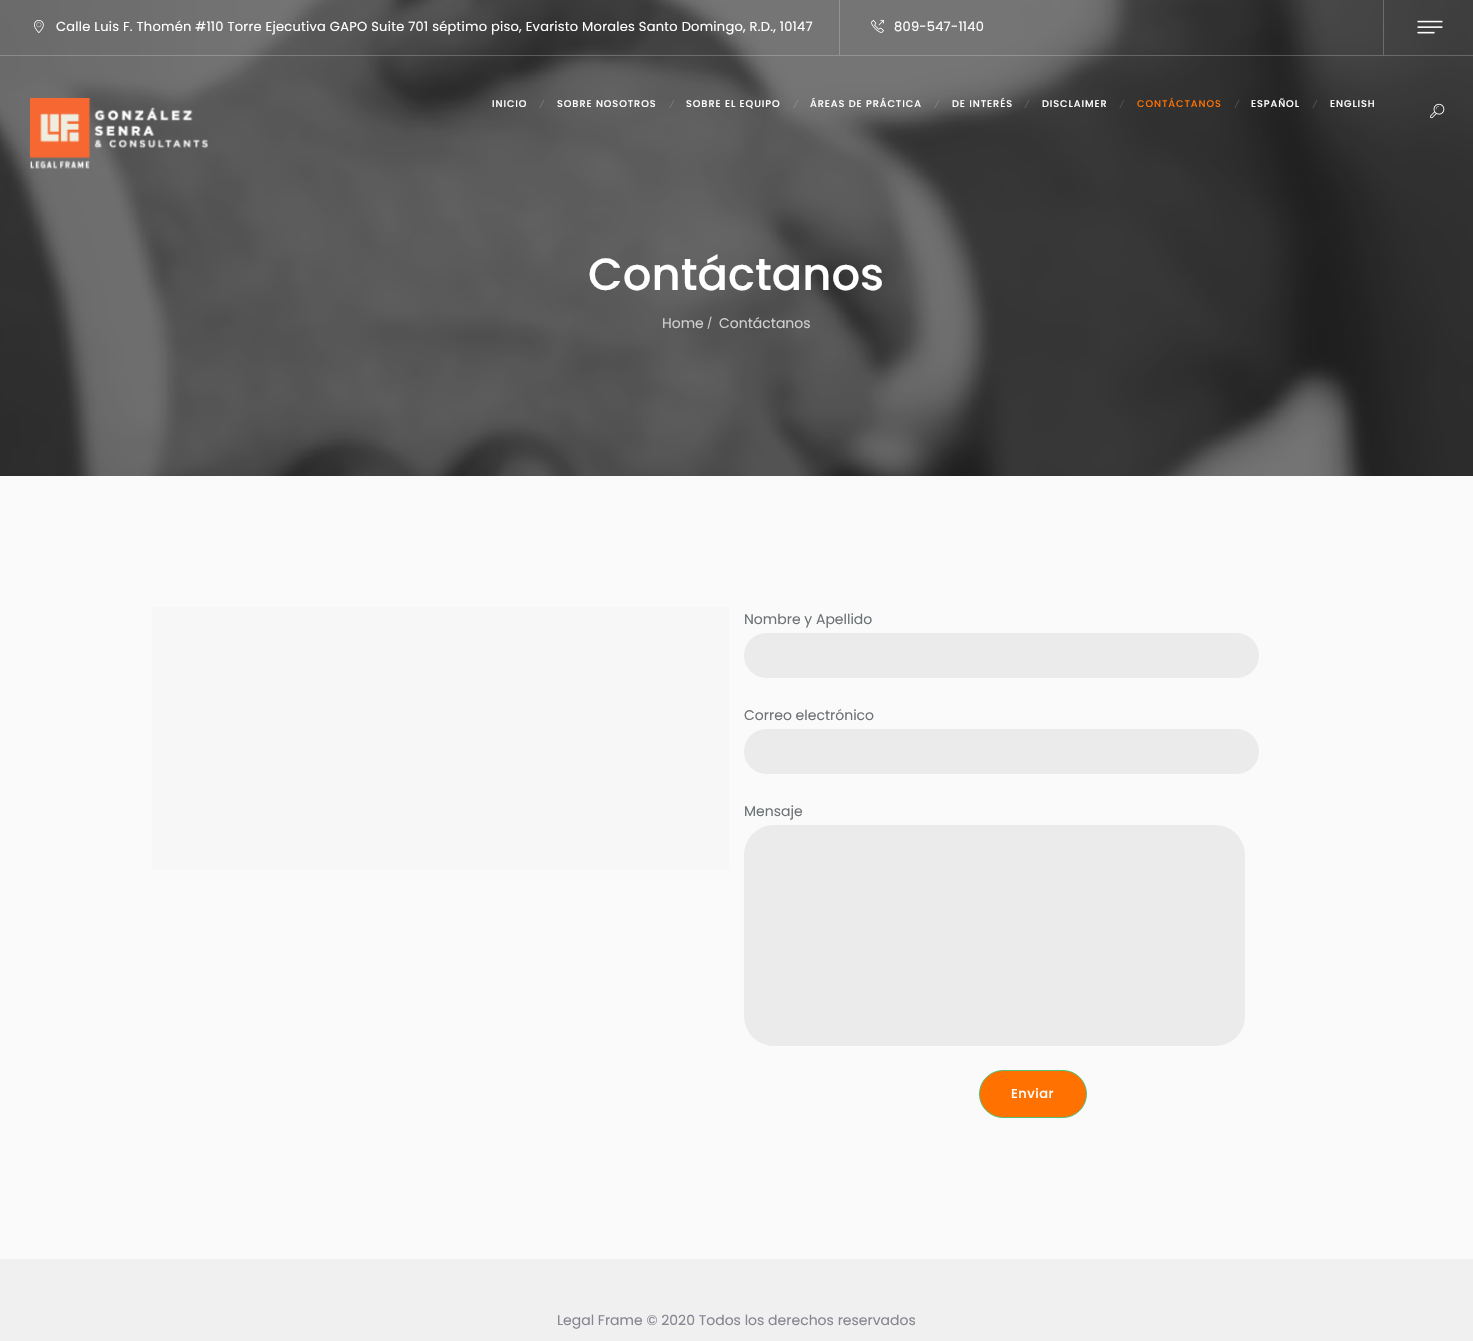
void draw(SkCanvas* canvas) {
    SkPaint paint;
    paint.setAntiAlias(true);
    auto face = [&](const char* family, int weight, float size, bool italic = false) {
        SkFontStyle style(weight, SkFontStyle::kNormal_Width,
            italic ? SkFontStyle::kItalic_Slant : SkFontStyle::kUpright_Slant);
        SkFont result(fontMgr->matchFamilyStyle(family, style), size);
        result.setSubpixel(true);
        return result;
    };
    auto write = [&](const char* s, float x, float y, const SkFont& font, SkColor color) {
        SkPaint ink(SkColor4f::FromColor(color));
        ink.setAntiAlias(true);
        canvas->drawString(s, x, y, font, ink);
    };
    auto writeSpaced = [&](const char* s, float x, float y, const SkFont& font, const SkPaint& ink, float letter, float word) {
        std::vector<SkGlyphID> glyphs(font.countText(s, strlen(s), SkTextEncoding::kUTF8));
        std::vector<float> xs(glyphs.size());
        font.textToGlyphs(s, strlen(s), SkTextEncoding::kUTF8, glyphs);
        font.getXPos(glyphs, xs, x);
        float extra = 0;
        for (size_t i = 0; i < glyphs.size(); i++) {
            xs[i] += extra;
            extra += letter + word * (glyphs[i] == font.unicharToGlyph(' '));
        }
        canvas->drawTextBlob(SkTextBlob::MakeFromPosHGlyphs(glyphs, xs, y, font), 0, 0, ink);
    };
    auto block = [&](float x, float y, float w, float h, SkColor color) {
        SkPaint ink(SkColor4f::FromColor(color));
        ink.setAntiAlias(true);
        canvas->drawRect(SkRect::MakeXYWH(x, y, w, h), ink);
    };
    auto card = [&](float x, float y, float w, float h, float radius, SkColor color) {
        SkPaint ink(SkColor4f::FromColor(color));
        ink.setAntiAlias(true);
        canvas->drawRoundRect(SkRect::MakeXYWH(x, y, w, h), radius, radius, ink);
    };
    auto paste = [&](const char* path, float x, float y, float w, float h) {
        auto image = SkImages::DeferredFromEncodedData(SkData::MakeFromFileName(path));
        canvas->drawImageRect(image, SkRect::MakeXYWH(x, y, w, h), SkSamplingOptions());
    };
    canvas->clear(SkColorSetRGB(250, 250, 250));
    paste("pic6.png", 0, 0, 1473, 476);
    block(0, 55, 1473, 1, SkColorSetARGB(56, 255, 255, 255));
    paste("pic1.png", 34, 20, 10, 13);
    auto kFont1 = face("Poppins", 400, 13);
    paint.setColor(SK_ColorWHITE);
    writeSpaced("Calle Luis F. Thomén #110 Torre Ejecutiva GAPO Suite 701 séptimo piso, Evaristo Morales Santo Domingo, R.D., 10147", 56, 31, kFont1, paint, 0.26f, 0);
    block(839, 0, 1, 55, SkColorSetRGB(147, 147, 147));
    paste("pic2.png", 871, 19, 13, 14);
    writeSpaced("809-547-1140", 894, 31, kFont1, paint, 0.26f, 0);
    block(1383, 0, 1, 55, SkColorSetRGB(108, 108, 108));
    paste("pic3.png", 1417, 20, 26, 14);
    paste("pic4.png", 30, 98, 178, 71);
    auto kFont2 = face("Poppins", 500, 9.75f);
    writeSpaced("INICIO", 492, 107, kFont2, paint, 0.9f, 0);
    auto kFont3 = face("Liberation Serif", 400, 12, true);
    paint.setColor(SkColorSetRGB(129, 129, 129));
    writeSpaced("/", 540, 108, kFont3, paint, 0.9f, 0);
    paint.setColor(SK_ColorWHITE);
    writeSpaced("SOBRE NOSOTROS", 557, 107, kFont2, paint, 0.9f, 0);
    paint.setColor(SkColorSetRGB(129, 129, 129));
    writeSpaced("/", 670, 108, kFont3, paint, 0.9f, 0);
    paint.setColor(SK_ColorWHITE);
    writeSpaced("SOBRE EL EQUIPO", 686, 107, kFont2, paint, 0.9f, 0);
    paint.setColor(SkColorSetRGB(144, 144, 144));
    writeSpaced("/", 794, 108, kFont3, paint, 0.9f, 0);
    paint.setColor(SK_ColorWHITE);
    writeSpaced("ÁREAS DE PRÁCTICA", 810, 107, kFont2, paint, 0.9f, 0);
    paint.setColor(SkColorSetRGB(135, 135, 135));
    writeSpaced("/", 935, 108, kFont3, paint, 0.9f, 0);
    paint.setColor(SK_ColorWHITE);
    writeSpaced("DE INTERÉS", 952, 107, kFont2, paint, 0.9f, 0);
    paint.setColor(SkColorSetRGB(107, 107, 107));
    writeSpaced("/", 1025, 108, kFont3, paint, 0.9f, 0);
    paint.setColor(SK_ColorWHITE);
    writeSpaced("DISCLAIMER", 1042, 107, kFont2, paint, 0.9f, 0);
    paint.setColor(SkColorSetRGB(92, 92, 92));
    writeSpaced("/", 1120, 108, kFont3, paint, 0.9f, 0);
    paint.setColor(SkColorSetRGB(255, 113, 0));
    writeSpaced("CONTÁCTANOS", 1137, 107, kFont2, paint, 0.9f, 0);
    paint.setColor(SkColorSetRGB(92, 92, 92));
    writeSpaced("/", 1235, 108, kFont3, paint, 0.9f, 0);
    paint.setColor(SK_ColorWHITE);
    writeSpaced("ESPAÑOL", 1251, 107, kFont2, paint, 0.9f, 0);
    paint.setColor(SkColorSetRGB(92, 92, 92));
    writeSpaced("/", 1313, 108, kFont3, paint, 0.9f, 0);
    paint.setColor(SK_ColorWHITE);
    writeSpaced("ENGLISH", 1330, 107, kFont2, paint, 0.9f, 0);
    paste("pic5.png", 1430, 103, 15, 16);
    auto kFont4 = face("Poppins", 500, 45);
    write("Contáctanos", 588, 290, kFont4, SK_ColorWHITE);
    auto kFont5 = face("Poppins", 400, 14);
    write("Home", 662, 328, kFont5, SkColorSetRGB(207, 207, 207));
    auto kFont6 = face("Poppins", 400, 11);
    write("/", 707, 327, kFont6, SkColorSetRGB(207, 207, 207));
    write("Contáctanos", 719, 328, kFont5, SkColorSetRGB(207, 207, 207));
    block(152, 607, 577, 262, SkColorSetRGB(247, 247, 247));
    write("Nombre y Apellido", 744, 624, kFont5, SkColorSetRGB(109, 114, 117));
    card(744, 633, 515, 45, 22.5f, SkColorSetRGB(235, 235, 235));
    write("Correo electrónico", 744, 720, kFont5, SkColorSetRGB(109, 114, 117));
    card(744, 729, 515, 45, 22.5f, SkColorSetRGB(235, 235, 235));
    write("Mensaje", 744, 816, kFont5, SkColorSetRGB(109, 114, 117));
    card(744, 825, 501, 221, 30, SkColorSetRGB(235, 235, 235));
    paint.setColor(SkColorSetRGB(255, 113, 0));
    canvas->drawRoundRect(SkRect::MakeXYWH(979.5f, 1070.5f, 107, 47), 23.5f, 23.5f, paint);
    paint.setStyle(SkPaint::kStroke_Style);
    paint.setStrokeWidth(1);
    paint.setColor(SkColorSetRGB(84, 190, 115));
    canvas->drawRoundRect(SkRect::MakeXYWH(979.5f, 1070.5f, 107, 47), 23.5f, 23.5f, paint);
    auto kFont7 = face("Poppins", 500, 13);
    paint.setStyle(SkPaint::kFill_Style);
    paint.setColor(SK_ColorWHITE);
    writeSpaced("Enviar", 1011, 1098, kFont7, paint, 0.5f, 0);
    block(0, 1259, 1473, 82, SkColorSetRGB(240, 240, 240));
    write("Legal Frame © 2020 Todos los derechos reservados", 557, 1325, kFont5, SkColorSetRGB(136, 132, 144));
}
